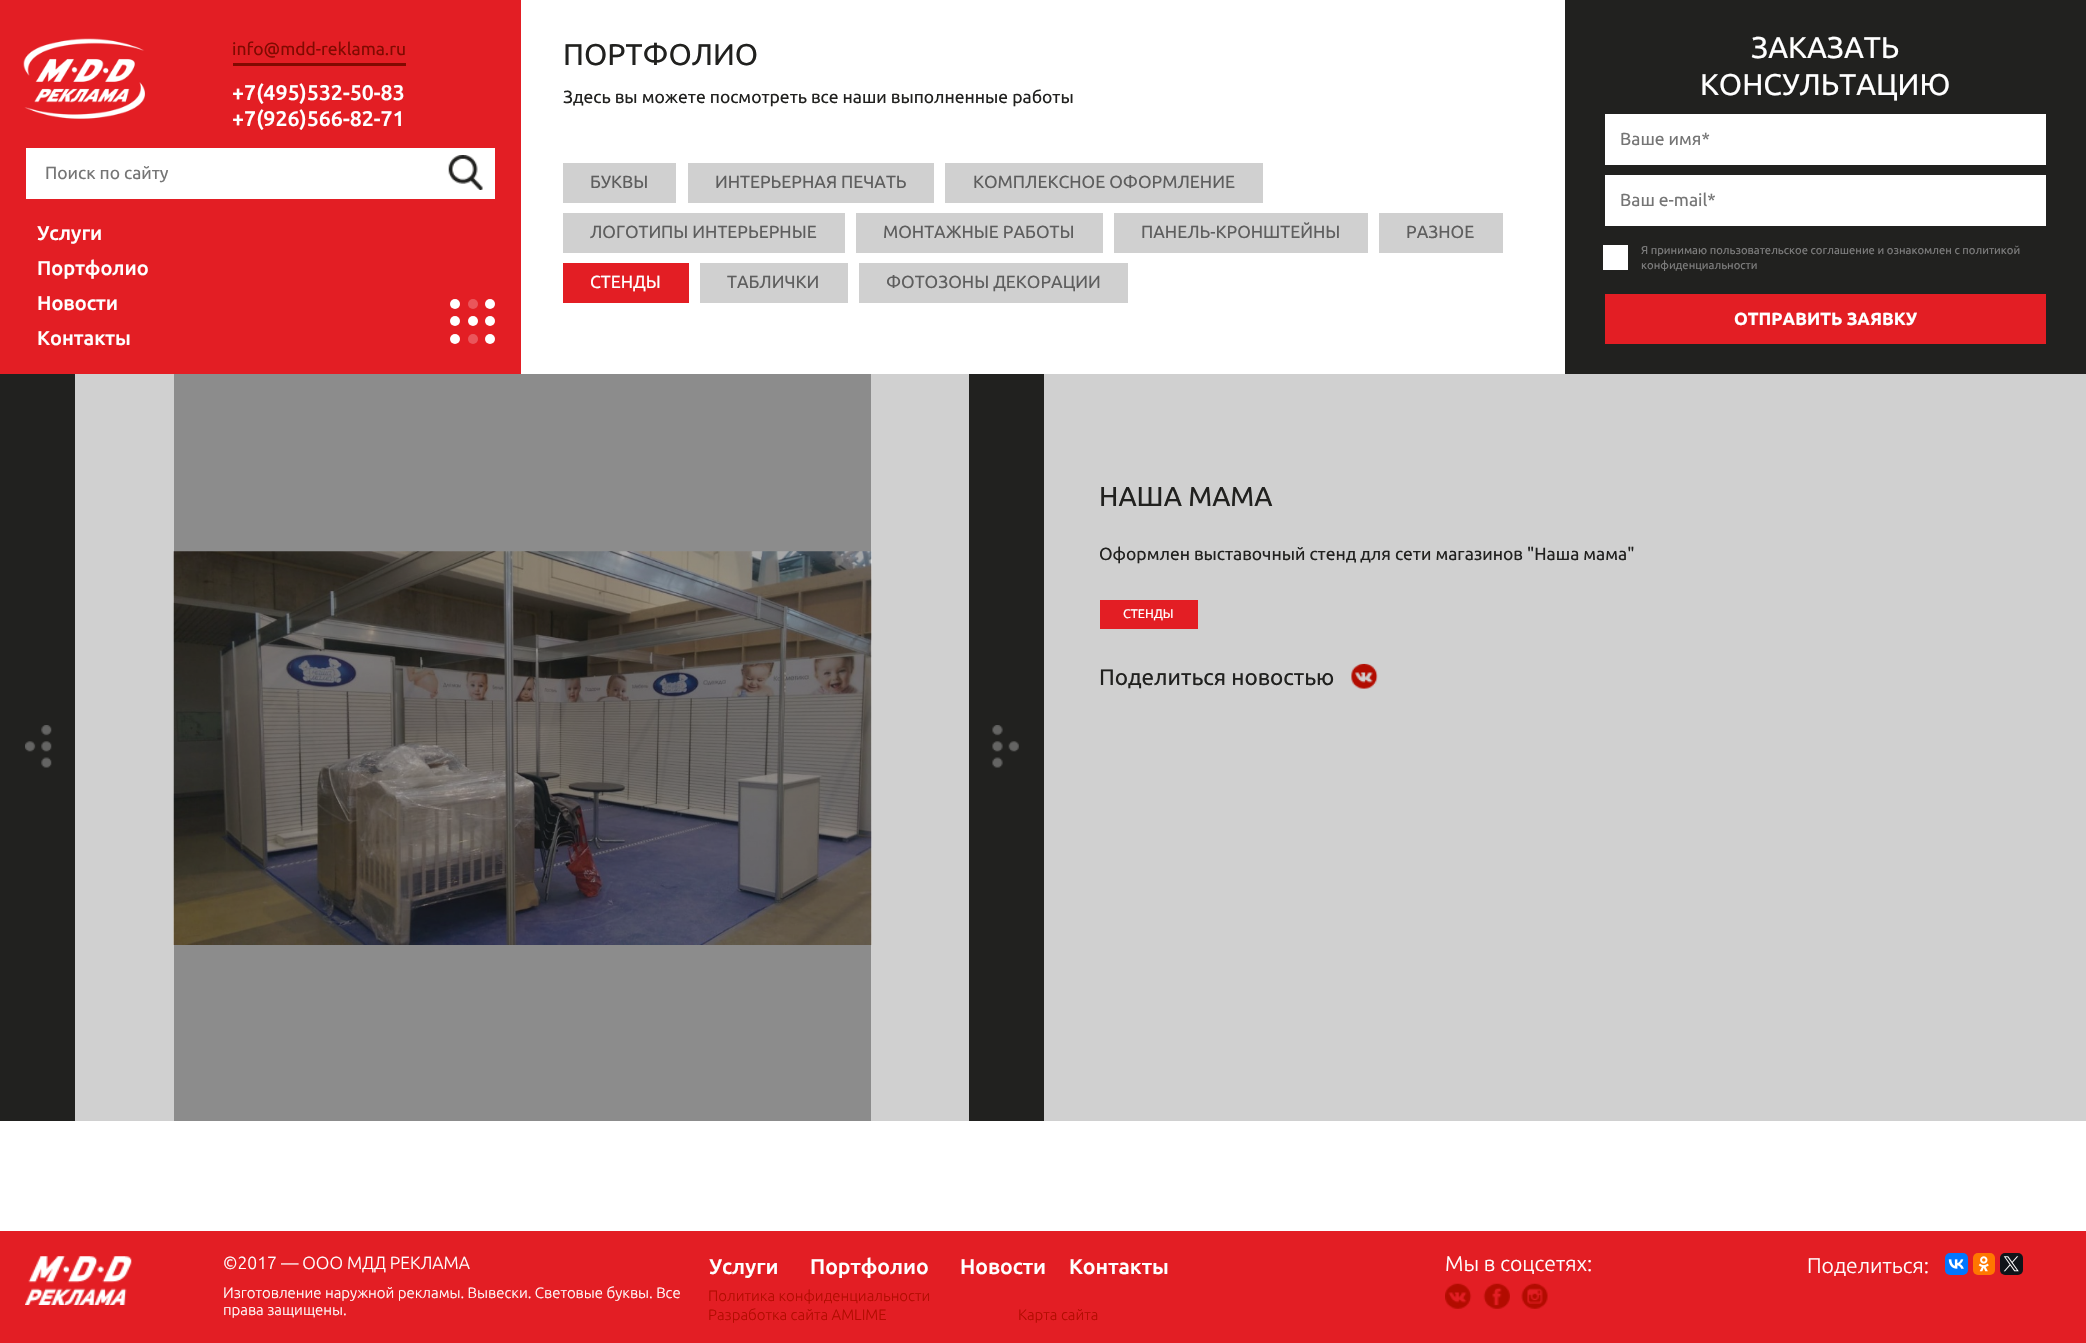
void draw(SkCanvas* canvas) {
    SkPaint paint;
    paint.setAntiAlias(true);
    auto face = [&](const char* family, int weight, float size, bool italic = false) {
        SkFontStyle style(weight, SkFontStyle::kNormal_Width,
            italic ? SkFontStyle::kItalic_Slant : SkFontStyle::kUpright_Slant);
        SkFont result(fontMgr->matchFamilyStyle(family, style), size);
        result.setSubpixel(true);
        return result;
    };
    auto write = [&](const char* s, float x, float y, const SkFont& font, SkColor color) {
        SkPaint ink(SkColor4f::FromColor(color));
        ink.setAntiAlias(true);
        canvas->drawString(s, x, y, font, ink);
    };
    auto block = [&](float x, float y, float w, float h, SkColor color) {
        SkPaint ink(SkColor4f::FromColor(color));
        ink.setAntiAlias(true);
        canvas->drawRect(SkRect::MakeXYWH(x, y, w, h), ink);
    };
    auto card = [&](float x, float y, float w, float h, float radius, SkColor color) {
        SkPaint ink(SkColor4f::FromColor(color));
        ink.setAntiAlias(true);
        canvas->drawRoundRect(SkRect::MakeXYWH(x, y, w, h), radius, radius, ink);
    };
    auto paste = [&](const char* path, float x, float y, float w, float h) {
        auto image = SkImages::DeferredFromEncodedData(SkData::MakeFromFileName(path));
        canvas->drawImageRect(image, SkRect::MakeXYWH(x, y, w, h), SkSamplingOptions());
    };
    canvas->clear(SK_ColorWHITE);
    block(0, 0, 521, 374, SkColorSetRGB(227, 30, 36));
    paste("pic1.png", 23, 38, 122, 81);
    auto kFont1 = face("Ubuntu", 400, 17.5f);
    write("info@mdd-reklama.ru", 232, 55, kFont1, SkColorSetRGB(129, 10, 1));
    block(233, 63, 173, 3, SkColorSetRGB(129, 10, 1));
    auto kFont2 = face("Ubuntu", 500, 21.25f);
    write("+7(495)532-50-83", 232, 100, kFont2, SK_ColorWHITE);
    write("+7(926)566-82-71", 232, 126, kFont2, SK_ColorWHITE);
    block(26, 148, 469, 51, SK_ColorWHITE);
    write("Поиск по сайту", 45, 179, kFont1, SkColorSetRGB(117, 117, 117));
    paste("pic2.png", 448, 155, 35, 35);
    auto kFont3 = face("Ubuntu", 500, 20);
    write("Услуги", 37, 240, kFont3, SK_ColorWHITE);
    write("Портфолио", 37, 275, kFont3, SK_ColorWHITE);
    write("Новости", 37, 310, kFont3, SK_ColorWHITE);
    write("Контакты", 37, 345, kFont3, SK_ColorWHITE);
    paint.setColor(SK_ColorWHITE);
    canvas->drawCircle(455, 304, 5, paint);
    paint.setColor(SkColorSetRGB(234, 86, 91));
    canvas->drawCircle(473, 304, 5, paint);
    paint.setColor(SK_ColorWHITE);
    canvas->drawCircle(490, 304, 5, paint);
    canvas->drawCircle(455, 321, 5, paint);
    canvas->drawCircle(473, 321, 5, paint);
    canvas->drawCircle(490, 321, 5, paint);
    canvas->drawCircle(455, 339, 5, paint);
    paint.setColor(SkColorSetRGB(234, 86, 91));
    canvas->drawCircle(473, 339, 5, paint);
    paint.setColor(SK_ColorWHITE);
    canvas->drawCircle(490, 339, 5, paint);
    auto kFont4 = face("Ubuntu", 400, 30);
    write("ПОРТФОЛИО", 563, 65, kFont4, SkColorSetRGB(33, 33, 31));
    write("Здесь вы можете посмотреть все наши выполненные работы", 563, 103, kFont1, SkColorSetRGB(33, 33, 31));
    block(563, 163, 113, 40, SkColorSetRGB(208, 208, 208));
    write("БУКВЫ", 590, 188, kFont1, SkColorSetRGB(94, 94, 94));
    block(688, 163, 246, 40, SkColorSetRGB(208, 208, 208));
    write("ИНТЕРЬЕРНАЯ ПЕЧАТЬ", 715, 188, kFont1, SkColorSetRGB(94, 94, 94));
    block(945, 163, 318, 40, SkColorSetRGB(208, 208, 208));
    write("КОМПЛЕКСНОЕ ОФОРМЛЕНИЕ", 973, 188, kFont1, SkColorSetRGB(94, 94, 94));
    block(563, 213, 282, 40, SkColorSetRGB(208, 208, 208));
    write("ЛОГОТИПЫ ИНТЕРЬЕРНЫЕ", 590, 238, kFont1, SkColorSetRGB(94, 94, 94));
    block(856, 213, 247, 40, SkColorSetRGB(208, 208, 208));
    write("МОНТАЖНЫЕ РАБОТЫ", 883, 238, kFont1, SkColorSetRGB(94, 94, 94));
    block(1114, 213, 254, 40, SkColorSetRGB(208, 208, 208));
    write("ПАНЕЛЬ-КРОНШТЕЙНЫ", 1141, 238, kFont1, SkColorSetRGB(94, 94, 94));
    block(1379, 213, 124, 40, SkColorSetRGB(208, 208, 208));
    write("РАЗНОЕ", 1406, 238, kFont1, SkColorSetRGB(94, 94, 94));
    block(563, 263, 126, 40, SkColorSetRGB(227, 30, 36));
    write("СТЕНДЫ", 590, 288, kFont1, SK_ColorWHITE);
    block(700, 263, 148, 40, SkColorSetRGB(208, 208, 208));
    write("ТАБЛИЧКИ", 727, 288, kFont1, SkColorSetRGB(94, 94, 94));
    block(859, 263, 269, 40, SkColorSetRGB(208, 208, 208));
    write("ФОТОЗОНЫ ДЕКОРАЦИИ", 886, 288, kFont1, SkColorSetRGB(94, 94, 94));
    block(1565, 0, 521, 374, SkColorSetRGB(33, 33, 31));
    write("ЗАКАЗАТЬ", 1751, 58, kFont4, SK_ColorWHITE);
    write("КОНСУЛЬТАЦИЮ", 1700, 95, kFont4, SK_ColorWHITE);
    block(1605, 114, 441, 51, SK_ColorWHITE);
    write("Ваше имя*", 1620, 145, kFont1, SkColorSetRGB(117, 117, 117));
    block(1605, 175, 441, 51, SK_ColorWHITE);
    write("Ваш e-mail*", 1620, 206, kFont1, SkColorSetRGB(117, 117, 117));
    block(1603, 245, 25, 25, SK_ColorWHITE);
    auto kFont5 = face("Ubuntu", 400, 11.25f);
    write("Я принимаю пользовательское соглашение и ознакомлен с политикой", 1641, 254, kFont5, SkColorSetRGB(125, 125, 125));
    write("конфиденциальности", 1641, 269, kFont5, SkColorSetRGB(125, 125, 125));
    block(1605, 294, 441, 50, SkColorSetRGB(227, 30, 36));
    auto kFont6 = face("Ubuntu", 700, 17.5f);
    write("ОТПРАВИТЬ ЗАЯВКУ", 1734, 325, kFont6, SK_ColorWHITE);
    block(75, 374, 894, 747, SkColorSetRGB(208, 208, 208));
    block(174, 374, 697, 747, SkColorSetRGB(140, 140, 140));
    block(0, 374, 75, 747, SkColorSetRGB(33, 33, 31));
    paste("pic3.png", 25, 725, 27, 43);
    paste("pic4.png", 173, 551, 699, 394);
    block(969, 374, 75, 747, SkColorSetRGB(33, 33, 31));
    paste("pic5.png", 992, 725, 27, 43);
    block(1044, 374, 1042, 747, SkColorSetRGB(208, 208, 208));
    auto kFont7 = face("Ubuntu", 400, 27.5f);
    write("НАША МАМА", 1099, 506, kFont7, SkColorSetRGB(33, 33, 31));
    write("Оформлен выставочный стенд для сети магазинов \"Наша мама\"", 1099, 560, kFont1, SkColorSetRGB(33, 33, 31));
    block(1100, 600, 98, 29, SkColorSetRGB(227, 30, 36));
    auto kFont8 = face("Ubuntu", 400, 12.5f);
    write("СТЕНДЫ", 1123, 618, kFont8, SK_ColorWHITE);
    auto kFont9 = face("Ubuntu", 400, 22.5f);
    write("Поделиться новостью", 1099, 685, kFont9, SkColorSetRGB(33, 33, 31));
    paste("pic6.png", 1351, 663, 27, 26);
    block(0, 1231, 2086, 112, SkColorSetRGB(227, 30, 36));
    paste("pic7.png", 25, 1256, 107, 49);
    auto kFont10 = face("Ubuntu", 300, 17.5f);
    write("©2017 — ООО МДД РЕКЛАМА", 223, 1269, kFont10, SK_ColorWHITE);
    auto kFont11 = face("Ubuntu", 300, 15);
    write("Изготовление наружной рекламы. Вывески. Световые буквы. Все", 223, 1298, kFont11, SK_ColorWHITE);
    write("права защищены.", 223, 1315, kFont11, SK_ColorWHITE);
    write("Услуги", 709, 1274, kFont2, SK_ColorWHITE);
    write("Портфолио", 810, 1274, kFont2, SK_ColorWHITE);
    write("Новости", 960, 1274, kFont2, SK_ColorWHITE);
    write("Контакты", 1069, 1274, kFont2, SK_ColorWHITE);
    write("Политика конфиденциальности", 708, 1301, kFont11, SkColorSetRGB(178, 12, 0));
    write("Разработка сайта AMLIME", 708, 1320, kFont11, SkColorSetRGB(178, 12, 0));
    write("Карта сайта", 1018, 1320, kFont11, SkColorSetRGB(178, 12, 0));
    auto kFont12 = face("Ubuntu", 300, 21.25f);
    write("Мы в соцсетях:", 1445, 1271, kFont12, SK_ColorWHITE);
    paste("pic8.png", 1445, 1283, 27, 26);
    paste("pic9.png", 1483, 1283, 27, 26);
    paste("pic10.png", 1521, 1283, 27, 26);
    write("Поделиться:", 1807, 1273, kFont12, SK_ColorWHITE);
    card(1945, 1253, 23, 22, 5, SkColorSetRGB(0, 119, 255));
    paste("pic11.png", 1948, 1259, 16, 10);
    card(1973, 1253, 22, 22, 5, SkColorSetRGB(255, 119, 0));
    paste("pic12.png", 1978, 1256, 11, 16);
    card(2000, 1253, 23, 22, 5, SkColorSetRGB(15, 20, 25));
    paste("pic13.png", 2003, 1256, 16, 16);
}
